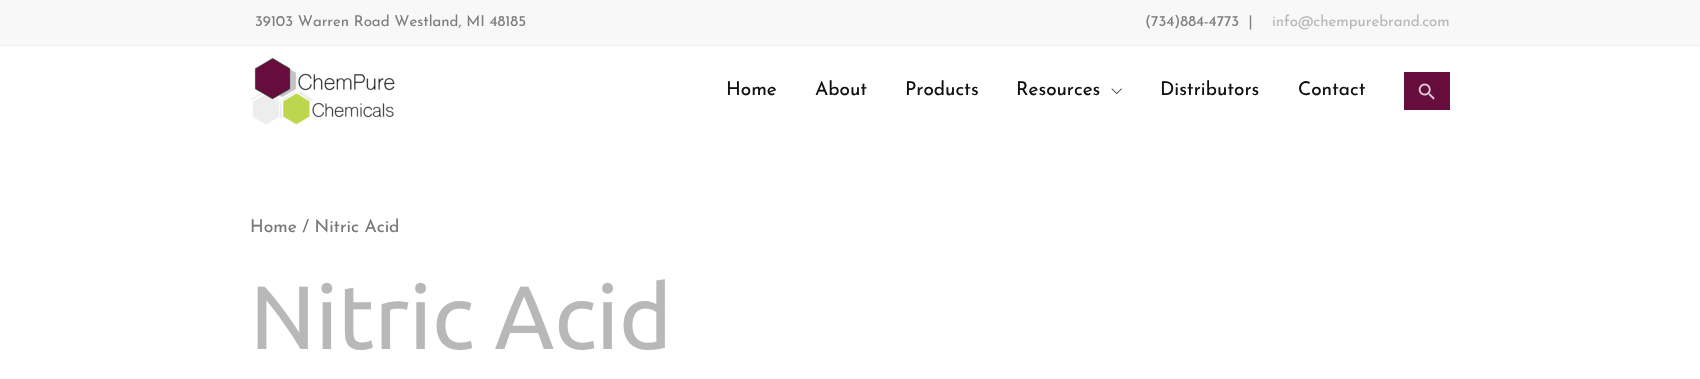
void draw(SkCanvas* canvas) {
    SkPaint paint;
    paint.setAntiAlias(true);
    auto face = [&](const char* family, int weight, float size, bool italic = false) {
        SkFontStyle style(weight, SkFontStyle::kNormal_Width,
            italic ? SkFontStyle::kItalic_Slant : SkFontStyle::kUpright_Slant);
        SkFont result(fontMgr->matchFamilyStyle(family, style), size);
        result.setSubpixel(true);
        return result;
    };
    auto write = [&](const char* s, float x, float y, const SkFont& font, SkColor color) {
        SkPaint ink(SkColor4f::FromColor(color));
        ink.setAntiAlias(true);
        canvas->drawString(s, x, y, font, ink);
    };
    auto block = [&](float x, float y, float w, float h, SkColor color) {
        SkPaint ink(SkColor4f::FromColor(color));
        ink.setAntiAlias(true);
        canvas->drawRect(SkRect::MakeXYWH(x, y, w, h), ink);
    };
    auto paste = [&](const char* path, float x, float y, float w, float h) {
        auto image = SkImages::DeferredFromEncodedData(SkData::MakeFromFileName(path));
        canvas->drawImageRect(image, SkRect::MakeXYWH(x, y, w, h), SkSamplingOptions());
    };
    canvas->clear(SK_ColorWHITE);
    block(0, 0, 1700, 45, SkColorSetRGB(248, 248, 248));
    block(0, 45, 1700, 1, SkColorSetRGB(241, 241, 241));
    auto kFont1 = face("Josefin Sans", 100, 15);
    write("39103 Warren Road Westland, MI 48185", 255, 26, kFont1, SkColorSetRGB(126, 126, 126));
    write("(734)884-4773  |", 1145, 26, kFont1, SkColorSetRGB(126, 126, 126));
    write("info@chempurebrand.com", 1272, 26, kFont1, SkColorSetRGB(184, 184, 184));
    paste("pic1.png", 250, 58, 145, 67);
    auto kFont2 = face("Josefin Sans", 100, 19);
    write("Home", 726, 95, kFont2, SkColorSetRGB(17, 17, 17));
    write("About", 815, 95, kFont2, SkColorSetRGB(17, 17, 17));
    write("Products", 905, 95, kFont2, SkColorSetRGB(17, 17, 17));
    write("Resources", 1016, 95, kFont2, SkColorSetRGB(17, 17, 17));
    paste("pic2.png", 1111, 88, 11, 6);
    write("Distributors", 1160, 95, kFont2, SkColorSetRGB(17, 17, 17));
    write("Contact", 1298, 95, kFont2, SkColorSetRGB(17, 17, 17));
    block(1404, 72, 46, 38, SkColorSetRGB(102, 13, 62));
    paste("pic3.png", 1418, 83, 17, 17);
    auto kFont3 = face("Josefin Sans", 100, 17.5f);
    write("Home / Nitric Acid", 250, 232, kFont3, SkColorSetRGB(119, 119, 119));
    auto kFont4 = face("Ubuntu", 400, 90);
    write("Nitric Acid", 250, 349, kFont4, SkColorSetRGB(184, 184, 184));
}
